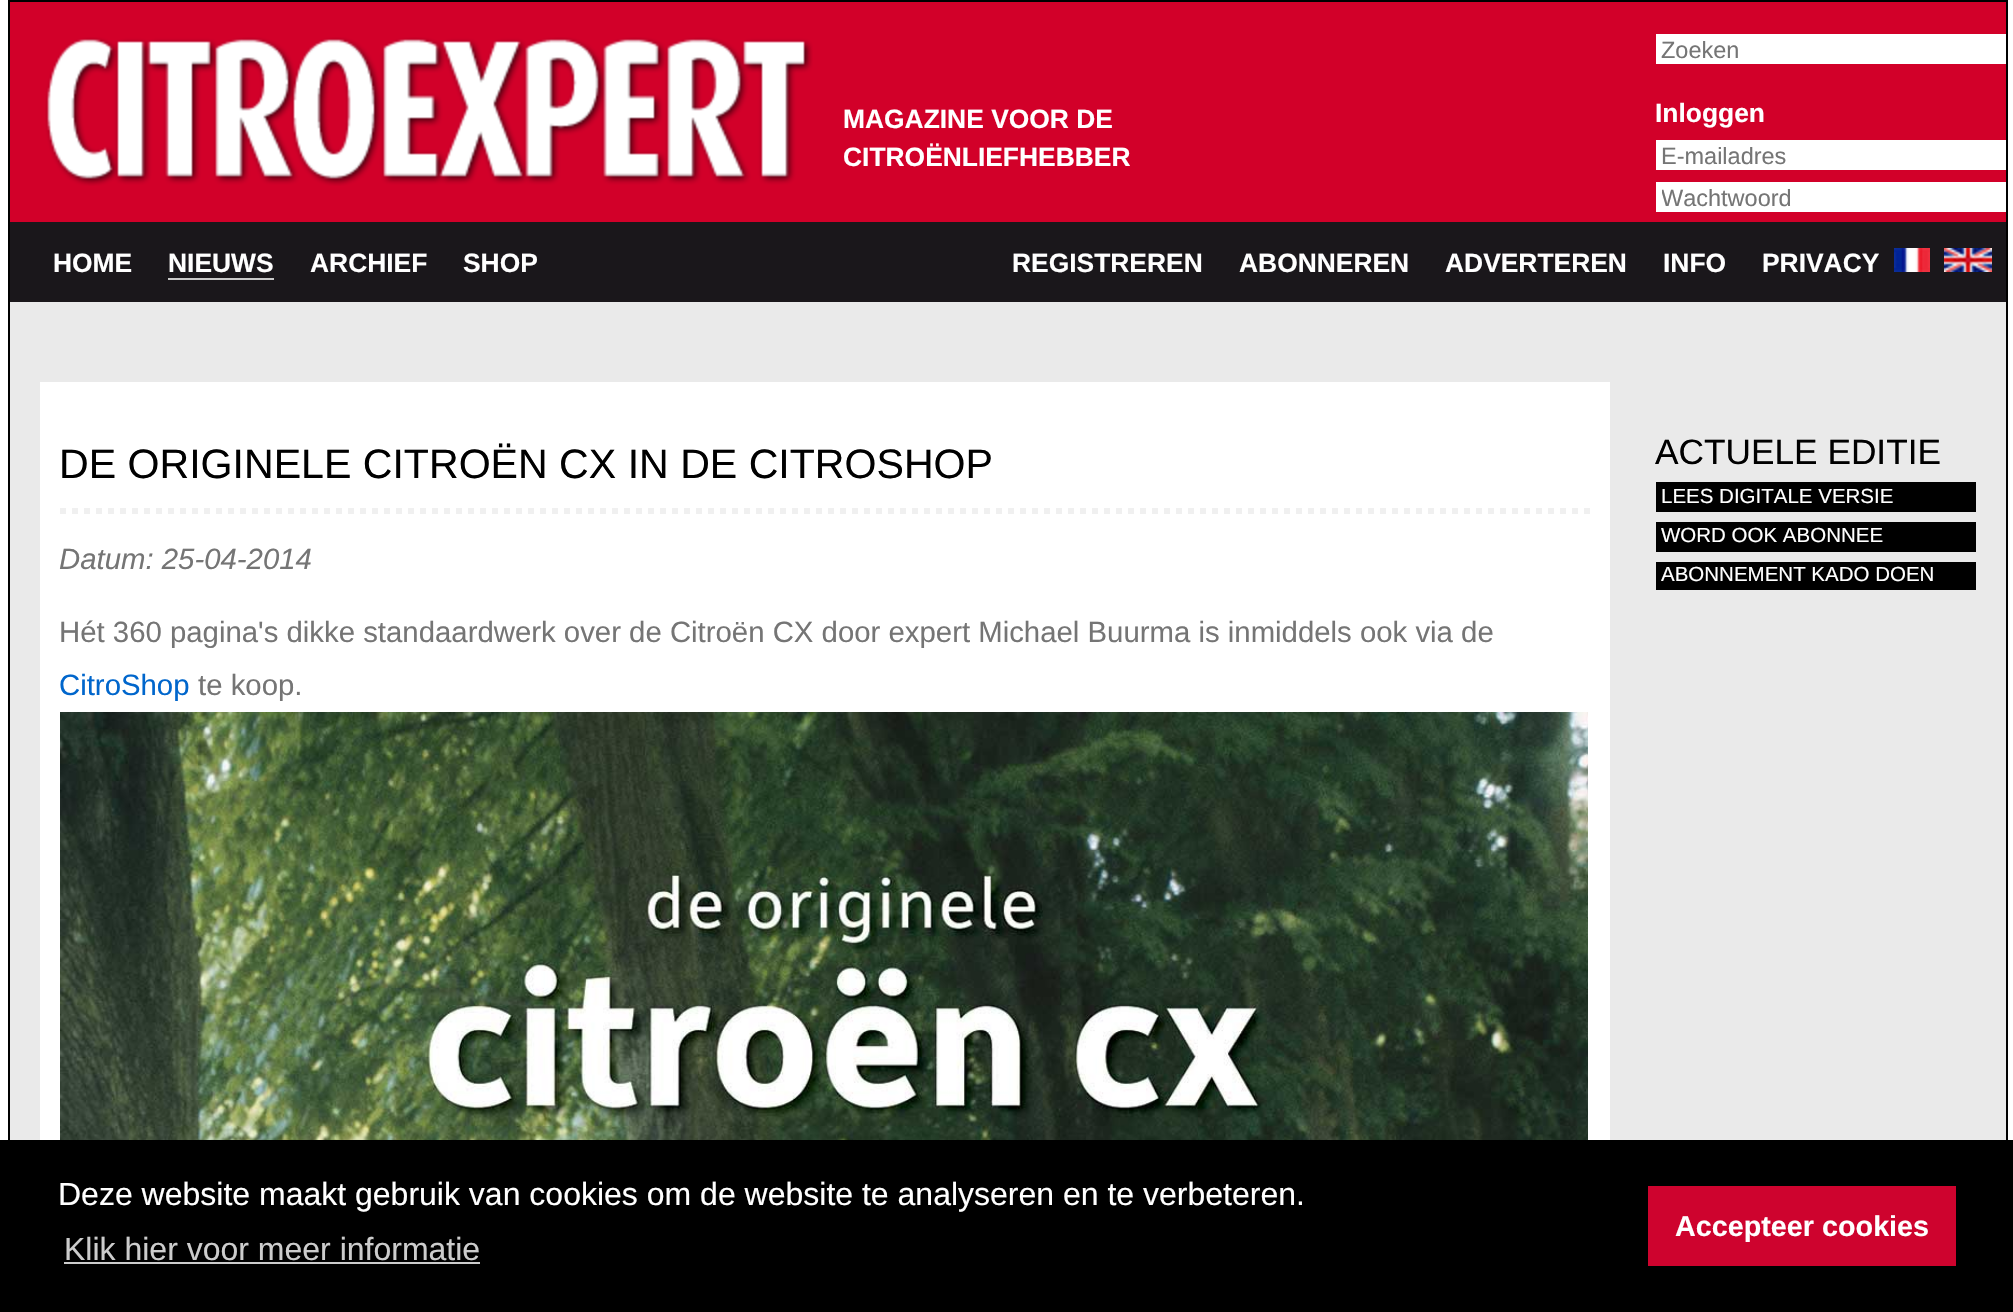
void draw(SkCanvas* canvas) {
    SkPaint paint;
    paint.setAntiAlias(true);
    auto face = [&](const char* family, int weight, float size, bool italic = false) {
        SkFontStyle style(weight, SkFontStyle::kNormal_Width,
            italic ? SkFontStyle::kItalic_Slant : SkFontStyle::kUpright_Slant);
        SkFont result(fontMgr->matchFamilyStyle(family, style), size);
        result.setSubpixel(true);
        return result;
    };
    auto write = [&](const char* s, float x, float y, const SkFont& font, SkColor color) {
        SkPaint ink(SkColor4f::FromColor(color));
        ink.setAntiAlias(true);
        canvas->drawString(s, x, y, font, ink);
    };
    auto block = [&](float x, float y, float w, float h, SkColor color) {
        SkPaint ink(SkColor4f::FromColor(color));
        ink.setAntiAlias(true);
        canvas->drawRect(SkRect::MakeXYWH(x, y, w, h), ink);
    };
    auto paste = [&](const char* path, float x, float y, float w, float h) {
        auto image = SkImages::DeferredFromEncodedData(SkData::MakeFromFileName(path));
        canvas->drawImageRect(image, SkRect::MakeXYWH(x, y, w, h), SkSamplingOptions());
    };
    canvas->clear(SK_ColorWHITE);
    block(10, 302, 1996, 838, SkColorSetRGB(234, 234, 234));
    paint.setStyle(SkPaint::kStroke_Style);
    paint.setStrokeWidth(2);
    paint.setColor(SK_ColorBLACK);
    canvas->drawRect(SkRect::MakeXYWH(9, 1, 1998, 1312), paint);
    block(10, 2, 1996, 220, SkColorSetRGB(210, 0, 41));
    paste("pic1.png", 45, 37, 768, 149);
    auto kFont1 = face("Liberation Sans", 700, 26.4f);
    write("MAGAZINE VOOR DE", 843, 128, kFont1, SK_ColorWHITE);
    write("CITROËNLIEFHEBBER", 843, 166, kFont1, SK_ColorWHITE);
    block(1656, 34, 350, 30, SK_ColorWHITE);
    auto kFont2 = face("Liberation Sans", 400, 23.5f);
    write("Zoeken", 1661, 58, kFont2, SkColorSetRGB(117, 117, 117));
    write("Inloggen", 1655, 122, kFont1, SK_ColorWHITE);
    block(1656, 140, 350, 30, SK_ColorWHITE);
    write("E-mailadres", 1661, 164, kFont2, SkColorSetRGB(117, 117, 117));
    block(1656, 182, 350, 30, SK_ColorWHITE);
    canvas->save();
    canvas->clipRect(SkRect::MakeXYWH(1662, 184, 344, 26));
    write("Wachtwoord", 1661, 206, kFont2, SkColorSetRGB(117, 117, 117));
    canvas->restore();
    block(10, 222, 1996, 80, SkColorSetRGB(26, 23, 27));
    write("HOME", 53, 272, kFont1, SK_ColorWHITE);
    write("NIEUWS", 168, 272, kFont1, SK_ColorWHITE);
    block(168, 278, 106, 2, SkColorSetRGB(201, 201, 201));
    write("ARCHIEF", 310, 272, kFont1, SK_ColorWHITE);
    write("SHOP", 463, 272, kFont1, SK_ColorWHITE);
    write("REGISTREREN", 1012, 272, kFont1, SK_ColorWHITE);
    write("ABONNEREN", 1239, 272, kFont1, SK_ColorWHITE);
    write("ADVERTEREN", 1445, 272, kFont1, SK_ColorWHITE);
    write("INFO", 1663, 272, kFont1, SK_ColorWHITE);
    write("PRIVACY", 1762, 272, kFont1, SK_ColorWHITE);
    paste("pic2.png", 1894, 248, 36, 24);
    paste("pic3.png", 1944, 248, 48, 24);
    block(40, 382, 1570, 758, SK_ColorWHITE);
    auto kFont3 = face("Liberation Sans", 400, 35.25f);
    write("ACTUELE EDITIE", 1655, 464, kFont3, SK_ColorBLACK);
    block(1656, 482, 320, 30, SK_ColorBLACK);
    auto kFont4 = face("Liberation Sans", 400, 20.5f);
    write("LEES DIGITALE VERSIE", 1661, 503, kFont4, SK_ColorWHITE);
    block(1656, 522, 320, 30, SK_ColorBLACK);
    write("WORD OOK ABONNEE", 1661, 542, kFont4, SK_ColorWHITE);
    block(1656, 562, 320, 28, SK_ColorBLACK);
    write("ABONNEMENT KADO DOEN", 1661, 581, kFont4, SK_ColorWHITE);
    paint.setStrokeWidth(6);
    paint.setColor(SkColorSetRGB(240, 240, 240));
    paint.setPathEffect(SkDashPathEffect::Make({{6, 6}}, 0));
    canvas->drawPath(SkPathBuilder().moveTo(60, 511).lineTo(1590, 511).detach(), paint);
    paint.setPathEffect(nullptr);
    auto kFont5 = face("Liberation Sans", 400, 41.1f);
    write("DE ORIGINELE CITROËN CX IN DE CITROSHOP", 59, 478, kFont5, SK_ColorBLACK);
    auto kFont6 = face("Liberation Sans", 400, 29.35f, true);
    write("Datum: 25-04-2014", 59, 569, kFont6, SkColorSetRGB(117, 117, 117));
    auto kFont7 = face("Liberation Sans", 400, 29.35f);
    write("Hét 360 pagina's dikke standaardwerk over de Citroën CX door expert Michael Buurma is inmiddels ook via de", 59, 642, kFont7, SkColorSetRGB(117, 117, 117));
    write("CitroShop", 59, 695, kFont7, SkColorSetRGB(0, 102, 204));
    write("te koop.", 198, 695, kFont7, SkColorSetRGB(117, 117, 117));
    paste("pic4.png", 60, 712, 1528, 428);
    block(0, 1140, 2013, 172, SK_ColorBLACK);
    auto kFont8 = face("Liberation Sans", 400, 32);
    write("Deze website maakt gebruik van cookies om de website te analyseren en te verbeteren.", 58, 1205, kFont8, SK_ColorWHITE);
    write("Klik hier voor meer informatie", 64, 1260, kFont8, SkColorSetRGB(204, 204, 204));
    block(64, 1262, 416, 2, SkColorSetRGB(204, 204, 204));
    block(1648, 1186, 308, 80, SkColorSetRGB(206, 3, 46));
    auto kFont9 = face("Liberation Sans", 700, 28.75f);
    write("Accepteer cookies", 1675, 1236, kFont9, SK_ColorWHITE);
}
